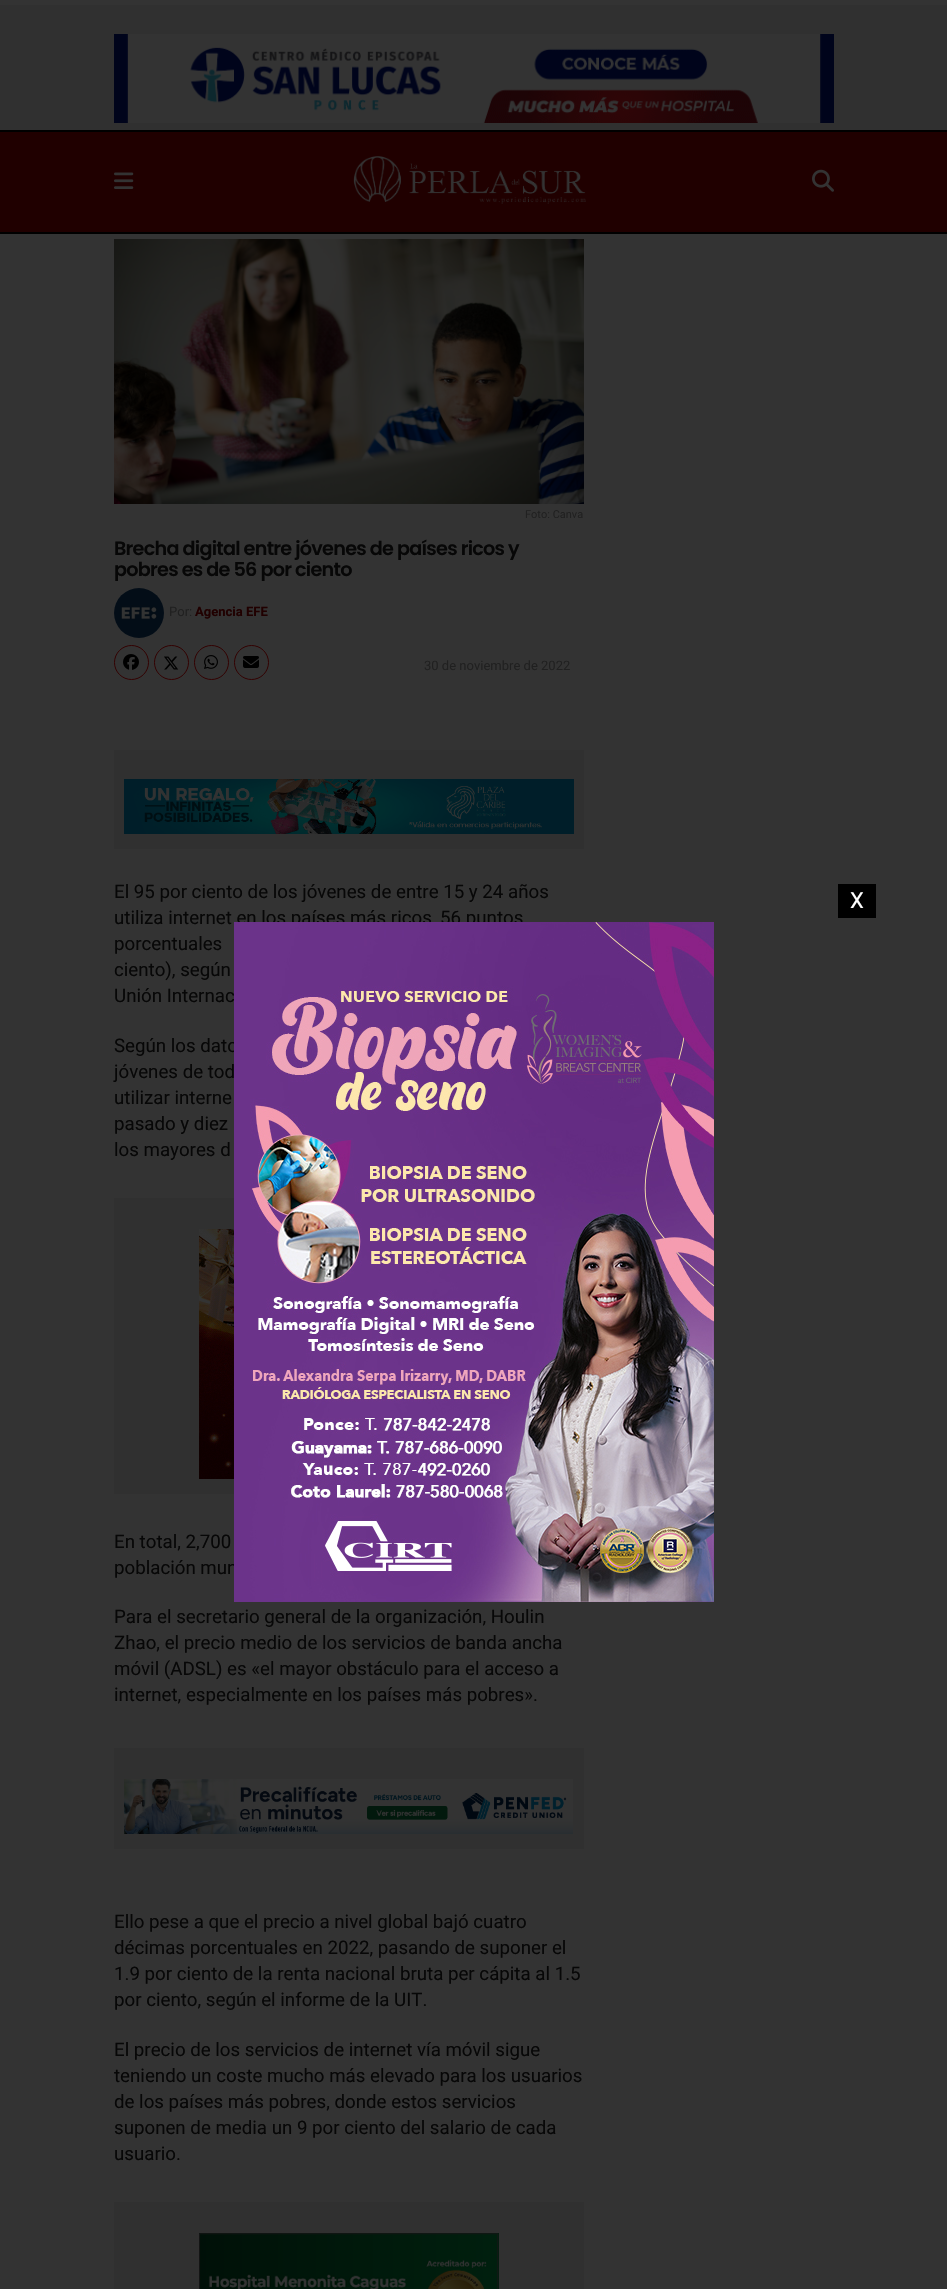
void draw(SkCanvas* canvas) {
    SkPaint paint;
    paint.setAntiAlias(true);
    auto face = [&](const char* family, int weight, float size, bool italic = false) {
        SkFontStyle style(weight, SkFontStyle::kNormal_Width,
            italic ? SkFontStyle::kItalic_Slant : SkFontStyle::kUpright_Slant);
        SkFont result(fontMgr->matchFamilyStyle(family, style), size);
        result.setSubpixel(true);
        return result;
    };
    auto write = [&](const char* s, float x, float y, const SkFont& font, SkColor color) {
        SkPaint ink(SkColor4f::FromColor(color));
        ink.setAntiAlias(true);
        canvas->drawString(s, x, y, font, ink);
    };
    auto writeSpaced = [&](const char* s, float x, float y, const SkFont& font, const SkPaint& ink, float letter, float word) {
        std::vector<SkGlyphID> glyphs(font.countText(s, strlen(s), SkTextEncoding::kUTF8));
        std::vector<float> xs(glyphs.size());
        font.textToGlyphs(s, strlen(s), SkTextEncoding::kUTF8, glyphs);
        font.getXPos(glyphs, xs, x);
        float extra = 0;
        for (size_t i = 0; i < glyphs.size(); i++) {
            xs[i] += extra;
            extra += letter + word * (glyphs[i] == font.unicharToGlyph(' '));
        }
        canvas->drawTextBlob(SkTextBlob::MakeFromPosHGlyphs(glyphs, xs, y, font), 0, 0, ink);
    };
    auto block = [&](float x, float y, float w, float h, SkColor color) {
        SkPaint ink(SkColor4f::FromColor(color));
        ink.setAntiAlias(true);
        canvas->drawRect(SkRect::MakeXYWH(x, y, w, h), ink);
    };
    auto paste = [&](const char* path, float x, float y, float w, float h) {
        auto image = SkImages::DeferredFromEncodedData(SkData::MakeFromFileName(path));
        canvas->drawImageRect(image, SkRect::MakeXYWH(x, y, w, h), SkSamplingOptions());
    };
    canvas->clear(SkColorSetRGB(51, 51, 51));
    block(0, 5, 947, 125, SkColorSetRGB(48, 48, 48));
    paste("pic1.png", 114, 34, 720, 89);
    block(0, 130, 947, 2, SK_ColorBLACK);
    block(0, 232, 947, 2, SK_ColorBLACK);
    block(0, 132, 947, 100, SkColorSetRGB(32, 0, 0));
    paste("pic2.png", 114, 172, 20, 17);
    paste("pic3.png", 353, 156, 233, 48);
    paste("pic4.png", 812, 169, 22, 23);
    paste("pic5.png", 114, 239, 470, 265);
    auto kFont1 = face("Heebo", 400, 11);
    write("Foto: Canva", 525, 518, kFont1, SkColorSetRGB(32, 32, 32));
    auto kFont2 = face("Poppins", 600, 19.2f);
    paint.setColor(SkColorSetRGB(7, 7, 7));
    writeSpaced("Brecha digital entre jóvenes de países ricos y", 114, 555, kFont2, paint, -0.75f, 0);
    writeSpaced("pobres es de 56 por ciento", 114, 576, kFont2, paint, -0.75f, 0);
    paste("pic6.png", 114, 588, 50, 50);
    auto kFont3 = face("Heebo", 400, 13);
    write("Por:", 169, 616, kFont3, SkColorSetRGB(32, 32, 32));
    auto kFont4 = face("Heebo", 700, 13);
    write("Agencia EFE", 195, 616, kFont4, SkColorSetRGB(32, 0, 0));
    paint.setStyle(SkPaint::kStroke_Style);
    paint.setStrokeWidth(1);
    paint.setColor(SkColorSetRGB(51, 0, 0));
    canvas->drawCircle(131.5f, 662.5f, 17, paint);
    paste("pic7.png", 123, 654, 16, 16);
    canvas->drawCircle(171.5f, 662.5f, 17, paint);
    paste("pic8.png", 164, 656, 15, 14);
    canvas->drawCircle(211.5f, 662.5f, 17, paint);
    paste("pic9.png", 204, 655, 14, 14);
    canvas->drawCircle(251.5f, 662.5f, 17, paint);
    paste("pic10.png", 243, 656, 16, 12);
    write("30 de noviembre de 2022", 424, 670, kFont3, SkColorSetRGB(32, 32, 32));
    block(114, 750, 470, 99, SkColorSetRGB(48, 48, 48));
    paste("pic11.png", 124, 779, 450, 55);
    auto kFont5 = face("Roboto", 400, 18.7f);
    write("El 95 por ciento de los jóvenes de entre 15 y 24 años", 114, 898, kFont5, SkColorSetRGB(7, 7, 7));
    write("utiliza internet en los países más ricos, 56 puntos", 114, 924, kFont5, SkColorSetRGB(7, 7, 7));
    write("porcentuales", 114, 950, kFont5, SkColorSetRGB(7, 7, 7));
    write("ciento), según", 114, 976, kFont5, SkColorSetRGB(7, 7, 7));
    write("Unión Internac", 114, 1002, kFont5, SkColorSetRGB(7, 7, 7));
    write("Según los dato", 114, 1052, kFont5, SkColorSetRGB(7, 7, 7));
    write("jóvenes de tod", 114, 1078, kFont5, SkColorSetRGB(7, 7, 7));
    write("utilizar interne", 114, 1104, kFont5, SkColorSetRGB(7, 7, 7));
    write("pasado y diez", 114, 1130, kFont5, SkColorSetRGB(7, 7, 7));
    write("los mayores d", 114, 1156, kFont5, SkColorSetRGB(7, 7, 7));
    block(114, 1198, 120, 296, SkColorSetRGB(48, 48, 48));
    paste("pic12.png", 199, 1229, 35, 250);
    write("En total, 2,700", 114, 1548, kFont5, SkColorSetRGB(7, 7, 7));
    write("población mun", 114, 1574, kFont5, SkColorSetRGB(7, 7, 7));
    write("Para el secretario general de la organización, Houlin", 114, 1623, kFont5, SkColorSetRGB(7, 7, 7));
    write("Zhao, el precio medio de los servicios de banda ancha", 114, 1649, kFont5, SkColorSetRGB(7, 7, 7));
    write("móvil (ADSL) es «el mayor obstáculo para el acceso a", 114, 1675, kFont5, SkColorSetRGB(7, 7, 7));
    write("internet, especialmente en los países más pobres».", 114, 1701, kFont5, SkColorSetRGB(7, 7, 7));
    block(114, 1748, 470, 101, SkColorSetRGB(48, 48, 48));
    paste("pic13.png", 124, 1779, 449, 55);
    write("Ello pese a que el precio a nivel global bajó cuatro", 114, 1928, kFont5, SkColorSetRGB(7, 7, 7));
    write("décimas porcentuales en 2022, pasando de suponer el", 114, 1954, kFont5, SkColorSetRGB(7, 7, 7));
    write("1.9 por ciento de la renta nacional bruta per cápita al 1.5", 114, 1980, kFont5, SkColorSetRGB(7, 7, 7));
    write("por ciento, según el informe de la UIT.", 114, 2006, kFont5, SkColorSetRGB(7, 7, 7));
    write("El precio de los servicios de internet vía móvil sigue", 114, 2056, kFont5, SkColorSetRGB(7, 7, 7));
    write("teniendo un coste mucho más elevado para los usuarios", 114, 2082, kFont5, SkColorSetRGB(7, 7, 7));
    write("de los países más pobres, donde estos servicios", 114, 2108, kFont5, SkColorSetRGB(7, 7, 7));
    write("suponen de media un 9 por ciento del salario de cada", 114, 2134, kFont5, SkColorSetRGB(7, 7, 7));
    write("usuario.", 114, 2160, kFont5, SkColorSetRGB(7, 7, 7));
    block(114, 2202, 470, 87, SkColorSetRGB(48, 48, 48));
    paste("pic14.png", 199, 2233, 300, 56);
    block(838, 884, 38, 34, SK_ColorBLACK);
    auto kFont6 = face("Heebo", 400, 22);
    write("X", 850, 908, kFont6, SK_ColorWHITE);
    paste("pic15.png", 234, 922, 480, 680);
}
